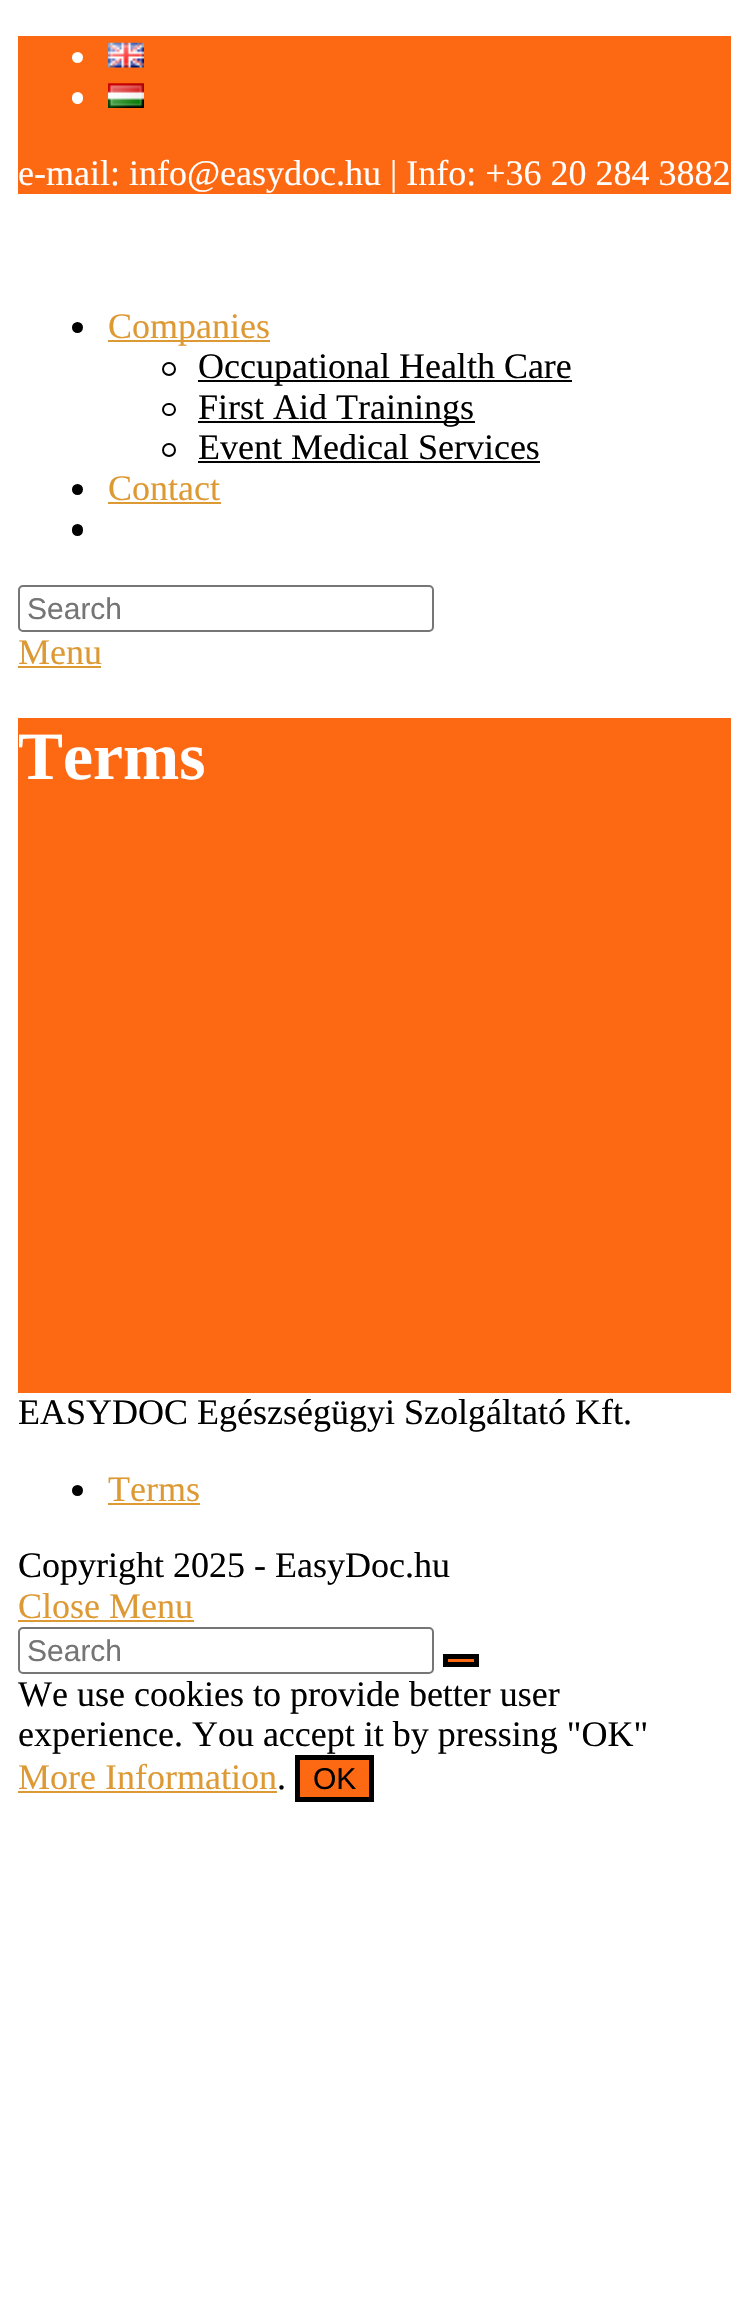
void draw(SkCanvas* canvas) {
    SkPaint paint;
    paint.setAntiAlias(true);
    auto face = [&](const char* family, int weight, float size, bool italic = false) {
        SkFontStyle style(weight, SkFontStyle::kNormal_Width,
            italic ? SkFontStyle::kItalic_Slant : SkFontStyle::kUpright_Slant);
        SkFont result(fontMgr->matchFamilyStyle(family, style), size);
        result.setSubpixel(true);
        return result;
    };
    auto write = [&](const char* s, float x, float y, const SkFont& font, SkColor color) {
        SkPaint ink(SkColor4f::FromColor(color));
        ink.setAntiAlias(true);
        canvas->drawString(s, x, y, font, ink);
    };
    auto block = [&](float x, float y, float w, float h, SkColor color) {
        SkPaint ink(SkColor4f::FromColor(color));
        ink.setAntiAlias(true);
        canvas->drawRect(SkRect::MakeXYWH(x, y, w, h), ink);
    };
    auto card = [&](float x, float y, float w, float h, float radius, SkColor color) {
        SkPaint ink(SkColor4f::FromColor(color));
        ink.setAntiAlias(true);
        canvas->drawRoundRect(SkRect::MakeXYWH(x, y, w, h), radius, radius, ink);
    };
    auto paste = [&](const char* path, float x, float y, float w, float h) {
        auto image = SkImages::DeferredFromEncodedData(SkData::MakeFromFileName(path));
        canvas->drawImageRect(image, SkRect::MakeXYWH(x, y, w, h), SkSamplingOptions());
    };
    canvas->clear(SK_ColorWHITE);
    block(18, 36, 713, 158, SkColorSetRGB(253, 104, 18));
    paint.setColor(SK_ColorWHITE);
    canvas->drawCircle(77.5f, 57.5f, 5.5f, paint);
    paste("pic1.png", 108, 42, 36, 26);
    card(72, 92, 11, 12, 5.5f, SK_ColorWHITE);
    paste("pic2.png", 108, 83, 36, 25);
    auto kFont1 = face("Liberation Serif", 400, 36);
    write("e-mail: info@easydoc.hu | Info: +36 20 284 3882", 18, 185, kFont1, SK_ColorWHITE);
    paint.setColor(SK_ColorBLACK);
    canvas->drawCircle(77.5f, 327.5f, 5.5f, paint);
    block(108, 340, 162, 2, SkColorSetRGB(221, 153, 51));
    write("Companies", 108, 338, kFont1, SkColorSetRGB(221, 153, 51));
    paint.setStyle(SkPaint::kStroke_Style);
    paint.setStrokeWidth(2);
    canvas->drawCircle(169, 369, 6, paint);
    block(198, 380, 374, 2, SK_ColorBLACK);
    write("Occupational Health Care", 198, 378, kFont1, SK_ColorBLACK);
    canvas->drawRoundRect(SkRect::MakeXYWH(163, 404, 12, 11), 5.5f, 5.5f, paint);
    block(198, 421, 277, 2, SK_ColorBLACK);
    write("First Aid Trainings", 198, 419, kFont1, SK_ColorBLACK);
    canvas->drawCircle(169, 450, 6, paint);
    write("Event Medical Services", 198, 459, kFont1, SK_ColorBLACK);
    block(198, 461, 342, 2, SK_ColorBLACK);
    paint.setStyle(SkPaint::kFill_Style);
    canvas->drawCircle(77.5f, 489.5f, 5.5f, paint);
    write("Contact", 108, 500, kFont1, SkColorSetRGB(221, 153, 51));
    block(108, 502, 113, 2, SkColorSetRGB(221, 153, 51));
    card(72, 524, 11, 12, 5.5f, SK_ColorBLACK);
    paint.setStyle(SkPaint::kStroke_Style);
    paint.setColor(SkColorSetRGB(118, 118, 118));
    canvas->drawRoundRect(SkRect::MakeXYWH(19, 586, 414, 45), 4, 4, paint);
    auto kFont2 = face("Liberation Sans", 400, 30);
    write("Search", 27, 619, kFont2, SkColorSetRGB(117, 117, 117));
    write("Menu", 18, 664, kFont1, SkColorSetRGB(221, 153, 51));
    block(18, 666, 83, 2, SkColorSetRGB(221, 153, 51));
    block(18, 718, 713, 675, SkColorSetRGB(253, 104, 18));
    auto kFont3 = face("Liberation Serif", 700, 67.5f);
    write("Terms", 18, 779, kFont3, SK_ColorWHITE);
    write("EASYDOC Egészségügyi Szolgáltató Kft.", 18, 1424, kFont1, SK_ColorBLACK);
    paint.setStyle(SkPaint::kFill_Style);
    paint.setColor(SK_ColorBLACK);
    canvas->drawCircle(77.5f, 1490.5f, 5.5f, paint);
    write("Terms", 108, 1501, kFont1, SkColorSetRGB(221, 153, 51));
    block(108, 1503, 92, 2, SkColorSetRGB(221, 153, 51));
    write("Copyright 2025 - EasyDoc.hu", 18, 1577, kFont1, SK_ColorBLACK);
    write("Close Menu", 18, 1618, kFont1, SkColorSetRGB(221, 153, 51));
    block(18, 1620, 176, 2, SkColorSetRGB(221, 153, 51));
    paint.setStyle(SkPaint::kStroke_Style);
    paint.setColor(SkColorSetRGB(118, 118, 118));
    canvas->drawRoundRect(SkRect::MakeXYWH(19, 1628, 414, 45), 4, 4, paint);
    write("Search", 27, 1661, kFont2, SkColorSetRGB(117, 117, 117));
    paint.setStyle(SkPaint::kFill_Style);
    paint.setColor(SkColorSetRGB(253, 104, 18));
    canvas->drawRect(SkRect::MakeXYWH(445.5f, 1656.5f, 31, 8), paint);
    paint.setStyle(SkPaint::kStroke_Style);
    paint.setStrokeWidth(5);
    paint.setColor(SK_ColorBLACK);
    canvas->drawRect(SkRect::MakeXYWH(445.5f, 1656.5f, 31, 8), paint);
    write("We use cookies to provide better user", 18, 1706, kFont1, SK_ColorBLACK);
    write("experience. You accept it by pressing \"OK\"", 18, 1746, kFont1, SK_ColorBLACK);
    write("More Information", 18, 1789, kFont1, SkColorSetRGB(221, 153, 51));
    block(18, 1791, 259, 2, SkColorSetRGB(221, 153, 51));
    write(".", 277, 1789, kFont1, SK_ColorBLACK);
    paint.setStyle(SkPaint::kFill_Style);
    paint.setColor(SkColorSetRGB(253, 104, 18));
    canvas->drawRect(SkRect::MakeXYWH(297.5f, 1757.5f, 74, 42), paint);
    paint.setStyle(SkPaint::kStroke_Style);
    paint.setColor(SK_ColorBLACK);
    canvas->drawRect(SkRect::MakeXYWH(297.5f, 1757.5f, 74, 42), paint);
    write("OK", 313, 1789, kFont2, SK_ColorBLACK);
}
